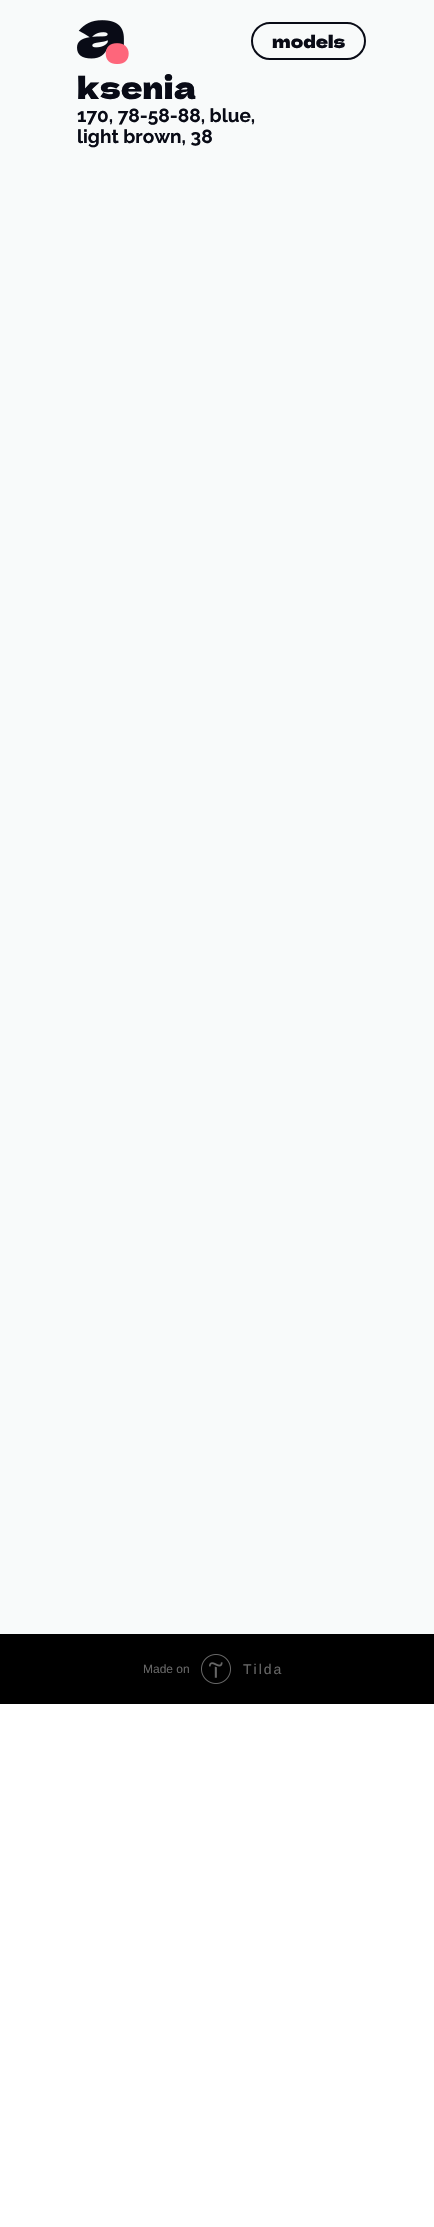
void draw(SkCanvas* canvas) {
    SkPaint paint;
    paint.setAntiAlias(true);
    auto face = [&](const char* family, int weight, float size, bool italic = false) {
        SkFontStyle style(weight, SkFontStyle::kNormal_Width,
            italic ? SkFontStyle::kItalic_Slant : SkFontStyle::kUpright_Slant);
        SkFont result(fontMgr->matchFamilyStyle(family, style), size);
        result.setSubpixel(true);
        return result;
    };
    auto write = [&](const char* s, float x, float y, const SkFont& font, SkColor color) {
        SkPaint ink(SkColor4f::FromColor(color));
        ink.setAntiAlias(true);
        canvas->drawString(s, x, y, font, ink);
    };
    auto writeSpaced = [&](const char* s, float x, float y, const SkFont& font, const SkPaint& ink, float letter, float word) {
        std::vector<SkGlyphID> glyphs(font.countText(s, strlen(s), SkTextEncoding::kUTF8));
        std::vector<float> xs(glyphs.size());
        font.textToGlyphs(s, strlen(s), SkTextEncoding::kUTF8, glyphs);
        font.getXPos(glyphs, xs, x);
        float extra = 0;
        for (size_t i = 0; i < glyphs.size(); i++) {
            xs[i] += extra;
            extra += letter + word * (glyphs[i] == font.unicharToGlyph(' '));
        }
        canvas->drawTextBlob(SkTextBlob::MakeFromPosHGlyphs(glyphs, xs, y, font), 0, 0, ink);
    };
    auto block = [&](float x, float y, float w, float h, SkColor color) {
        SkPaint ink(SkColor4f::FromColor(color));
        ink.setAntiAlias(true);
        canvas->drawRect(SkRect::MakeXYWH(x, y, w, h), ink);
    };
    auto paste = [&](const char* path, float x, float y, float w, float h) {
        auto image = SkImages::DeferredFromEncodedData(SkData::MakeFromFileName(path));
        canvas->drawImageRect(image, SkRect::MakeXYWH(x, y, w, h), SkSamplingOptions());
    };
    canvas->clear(SK_ColorWHITE);
    block(0, 0, 434, 1634, SkColorSetRGB(248, 250, 250));
    paste("pic1.png", 77, 20, 52, 44);
    paint.setStyle(SkPaint::kStroke_Style);
    paint.setStrokeWidth(2);
    paint.setColor(SkColorSetRGB(9, 11, 22));
    canvas->drawRoundRect(SkRect::MakeXYWH(252, 23, 113, 36), 18, 18, paint);
    auto kFont1 = face("Dela Gothic One", 400, 17);
    write("models", 272, 48, kFont1, SkColorSetRGB(9, 11, 22));
    auto kFont2 = face("Dela Gothic One", 400, 30);
    write("ksenia", 77, 99, kFont2, SkColorSetRGB(9, 11, 22));
    auto kFont3 = face("Raleway", 700, 19);
    write("170, 78-58-88, blue,", 77, 122, kFont3, SkColorSetRGB(9, 11, 22));
    write("light brown, 38", 77, 143, kFont3, SkColorSetRGB(9, 11, 22));
    block(0, 1634, 434, 70, SK_ColorBLACK);
    auto kFont4 = face("Liberation Sans", 400, 12);
    write("Made on", 143, 1673, kFont4, SkColorSetRGB(102, 102, 102));
    paste("pic2.png", 201, 1654, 30, 30);
    auto kFont5 = face("Liberation Sans", 400, 14);
    paint.setStyle(SkPaint::kFill_Style);
    paint.setColor(SkColorSetRGB(102, 102, 102));
    writeSpaced("Tilda", 243, 1674, kFont5, paint, 2, 0);
}
